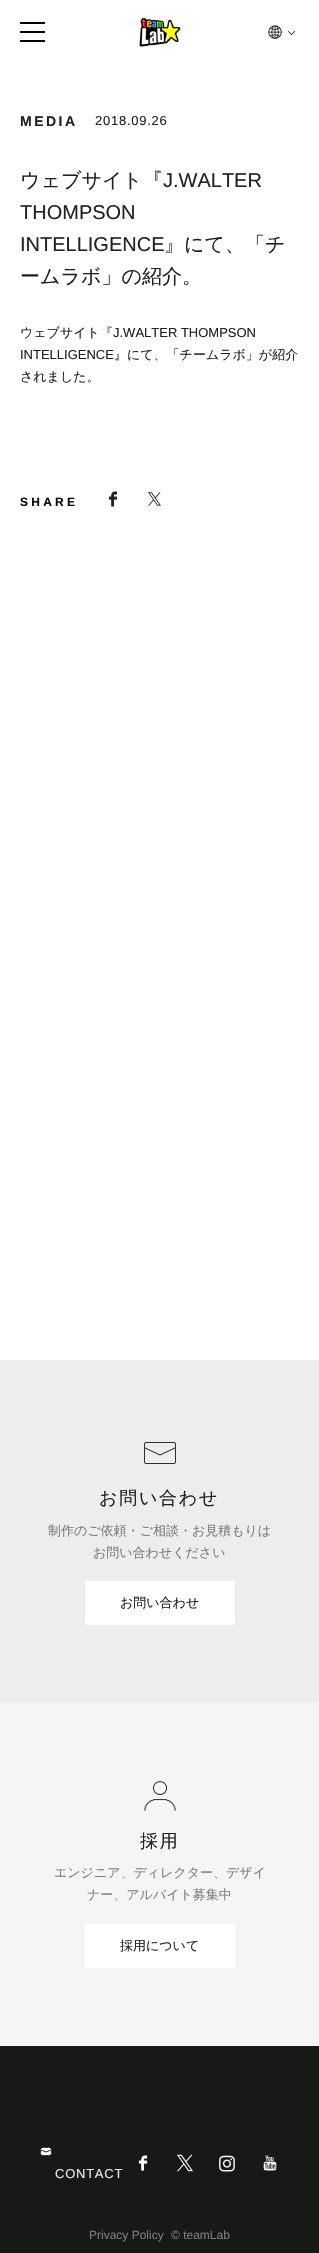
void draw(SkCanvas* canvas) {
    SkPaint paint;
    paint.setAntiAlias(true);
    auto face = [&](const char* family, int weight, float size, bool italic = false) {
        SkFontStyle style(weight, SkFontStyle::kNormal_Width,
            italic ? SkFontStyle::kItalic_Slant : SkFontStyle::kUpright_Slant);
        SkFont result(fontMgr->matchFamilyStyle(family, style), size);
        result.setSubpixel(true);
        return result;
    };
    auto write = [&](const char* s, float x, float y, const SkFont& font, SkColor color) {
        SkPaint ink(SkColor4f::FromColor(color));
        ink.setAntiAlias(true);
        canvas->drawString(s, x, y, font, ink);
    };
    auto writeSpaced = [&](const char* s, float x, float y, const SkFont& font, const SkPaint& ink, float letter, float word) {
        std::vector<SkGlyphID> glyphs(font.countText(s, strlen(s), SkTextEncoding::kUTF8));
        std::vector<float> xs(glyphs.size());
        font.textToGlyphs(s, strlen(s), SkTextEncoding::kUTF8, glyphs);
        font.getXPos(glyphs, xs, x);
        float extra = 0;
        for (size_t i = 0; i < glyphs.size(); i++) {
            xs[i] += extra;
            extra += letter + word * (glyphs[i] == font.unicharToGlyph(' '));
        }
        canvas->drawTextBlob(SkTextBlob::MakeFromPosHGlyphs(glyphs, xs, y, font), 0, 0, ink);
    };
    auto block = [&](float x, float y, float w, float h, SkColor color) {
        SkPaint ink(SkColor4f::FromColor(color));
        ink.setAntiAlias(true);
        canvas->drawRect(SkRect::MakeXYWH(x, y, w, h), ink);
    };
    auto card = [&](float x, float y, float w, float h, float radius, SkColor color) {
        SkPaint ink(SkColor4f::FromColor(color));
        ink.setAntiAlias(true);
        canvas->drawRoundRect(SkRect::MakeXYWH(x, y, w, h), radius, radius, ink);
    };
    auto paste = [&](const char* path, float x, float y, float w, float h) {
        auto image = SkImages::DeferredFromEncodedData(SkData::MakeFromFileName(path));
        canvas->drawImageRect(image, SkRect::MakeXYWH(x, y, w, h), SkSamplingOptions());
    };
    canvas->clear(SK_ColorWHITE);
    block(20, 22, 25, 2, SK_ColorBLACK);
    block(20, 31, 25, 2, SK_ColorBLACK);
    block(20, 40, 25, 2, SK_ColorBLACK);
    paste("pic1.png", 139, 18, 42, 29);
    paste("pic2.png", 268, 25, 14, 14);
    paint.setColor(SK_ColorBLACK);
    canvas->drawPath(SkPathBuilder().moveTo(294.5f, 31).lineTo(295, 31.5f).lineTo(291.5f, 35).lineTo(291, 34.5f).close().detach(), paint);
    canvas->drawPath(SkPathBuilder().moveTo(288.5f, 31).lineTo(292, 34.5f).lineTo(291.5f, 35).lineTo(288, 31.5f).close().detach(), paint);
    auto kFont1 = face("Liberation Sans", 700, 14);
    paint.setColor(SkColorSetRGB(33, 33, 33));
    writeSpaced("MEDIA", 20, 126, kFont1, paint, 2.5f, 0);
    auto kFont2 = face("Liberation Sans", 400, 13);
    writeSpaced("2018.09.26", 95, 125, kFont2, paint, 0.75f, 0);
    auto kFont3 = face("WenQuanYi Zen Hei", 500, 20);
    write("ウェブサイト『", 20, 187, kFont3, SkColorSetRGB(33, 33, 33));
    auto kFont4 = face("Liberation Sans", 400, 20);
    write("J.WALTER", 163, 187, kFont4, SkColorSetRGB(33, 33, 33));
    write("THOMPSON", 20, 219, kFont4, SkColorSetRGB(33, 33, 33));
    write("INTELLIGENCE", 20, 251, kFont4, SkColorSetRGB(33, 33, 33));
    write("』にて、「チ", 164, 251, kFont3, SkColorSetRGB(33, 33, 33));
    write("ームラボ」の紹介。", 20, 283, kFont3, SkColorSetRGB(33, 33, 33));
    auto kFont5 = face("WenQuanYi Zen Hei", 500, 13);
    write("ウェブサイト『", 20, 337, kFont5, SkColorSetRGB(33, 33, 33));
    write("J.WALTER THOMPSON", 113, 337, kFont2, SkColorSetRGB(33, 33, 33));
    write("INTELLIGENCE", 20, 359, kFont2, SkColorSetRGB(33, 33, 33));
    write("』にて、「チームラボ」が紹介", 114, 359, kFont5, SkColorSetRGB(33, 33, 33));
    write("されました。", 20, 381, kFont5, SkColorSetRGB(33, 33, 33));
    auto kFont6 = face("Liberation Sans", 700, 12);
    paint.setColor(SkColorSetRGB(10, 10, 10));
    writeSpaced("SHARE", 20, 506, kFont6, paint, 3.25f, 0);
    paste("pic3.png", 108, 491, 10, 16);
    paste("pic4.png", 148, 492, 13, 14);
    block(0, 1360, 319, 343, SkColorSetRGB(237, 237, 237));
    paste("pic5.png", 144, 1442, 32, 22);
    auto kFont7 = face("WenQuanYi Zen Hei", 500, 18);
    paint.setColor(SkColorSetRGB(33, 33, 33));
    writeSpaced("お問い合わせ", 99, 1504, kFont7, paint, 1.75f, 0);
    write("制作のご依頼・ご相談・お見積もりは", 48, 1535, kFont5, SkColorSetRGB(125, 125, 125));
    write("お問い合わせください", 93, 1557, kFont5, SkColorSetRGB(125, 125, 125));
    card(85, 1581, 150, 44, 2, SK_ColorWHITE);
    write("お問い合わせ", 120, 1607, kFont5, SkColorSetRGB(33, 33, 33));
    block(0, 1703, 319, 343, SkColorSetRGB(245, 245, 245));
    paste("pic6.png", 144, 1781, 32, 30);
    writeSpaced("採用", 140, 1847, kFont7, paint, 1.75f, 0);
    write("エンジニア、ディレクター、デザイ", 54, 1877, kFont5, SkColorSetRGB(125, 125, 125));
    write("ナー、アルバイト募集中", 87, 1899, kFont5, SkColorSetRGB(125, 125, 125));
    card(85, 1924, 150, 44, 2, SK_ColorWHITE);
    write("採用について", 120, 1950, kFont5, SkColorSetRGB(33, 33, 33));
    block(0, 2046, 319, 207, SkColorSetRGB(23, 25, 23));
    paste("pic7.png", 138, 2155, 10, 16);
    paste("pic8.png", 177, 2154, 16, 18);
    paste("pic9.png", 219, 2155, 16, 17);
    paste("pic10.png", 263, 2155, 14, 16);
    paint.setColor(SK_ColorWHITE);
    canvas->drawOval(SkRect::MakeXYWH(40, 2147, 12, 9), paint);
    paint.setColor(SkColorSetRGB(36, 36, 36));
    canvas->drawPath(SkPathBuilder(SkPathFillType::kEvenOdd).moveTo(42.5f, 2148).lineTo(50, 2148).cubicTo(47.5f, 2146.5f, 44.5f, 2146.5f, 42, 2148).close().moveTo(51, 2149).cubicTo(52.5f, 2150.5f, 52.5f, 2152.5f, 51, 2154).close().moveTo(50, 2155).cubicTo(47.5f, 2156.5f, 44.5f, 2156.5f, 42, 2155).close().moveTo(41, 2154).cubicTo(39.5f, 2152.5f, 39.5f, 2150.5f, 41, 2149).close().detach(), paint);
    paint.setStyle(SkPaint::kStroke_Style);
    paint.setStrokeWidth(1);
    canvas->drawPath(SkPathBuilder().moveTo(41, 2150).lineTo(46, 2152).lineTo(51, 2150).detach(), paint);
    paint.setStyle(SkPaint::kFill_Style);
    paint.setColor(SkColorSetRGB(229, 229, 229));
    writeSpaced("CONTACT", 55, 2178, kFont2, paint, 0.75f, 0);
    auto kFont8 = face("Liberation Sans", 400, 12);
    write("Privacy Policy", 89, 2239, kFont8, SkColorSetRGB(125, 125, 125));
    write("© teamLab", 171, 2239, kFont8, SkColorSetRGB(125, 125, 125));
}
